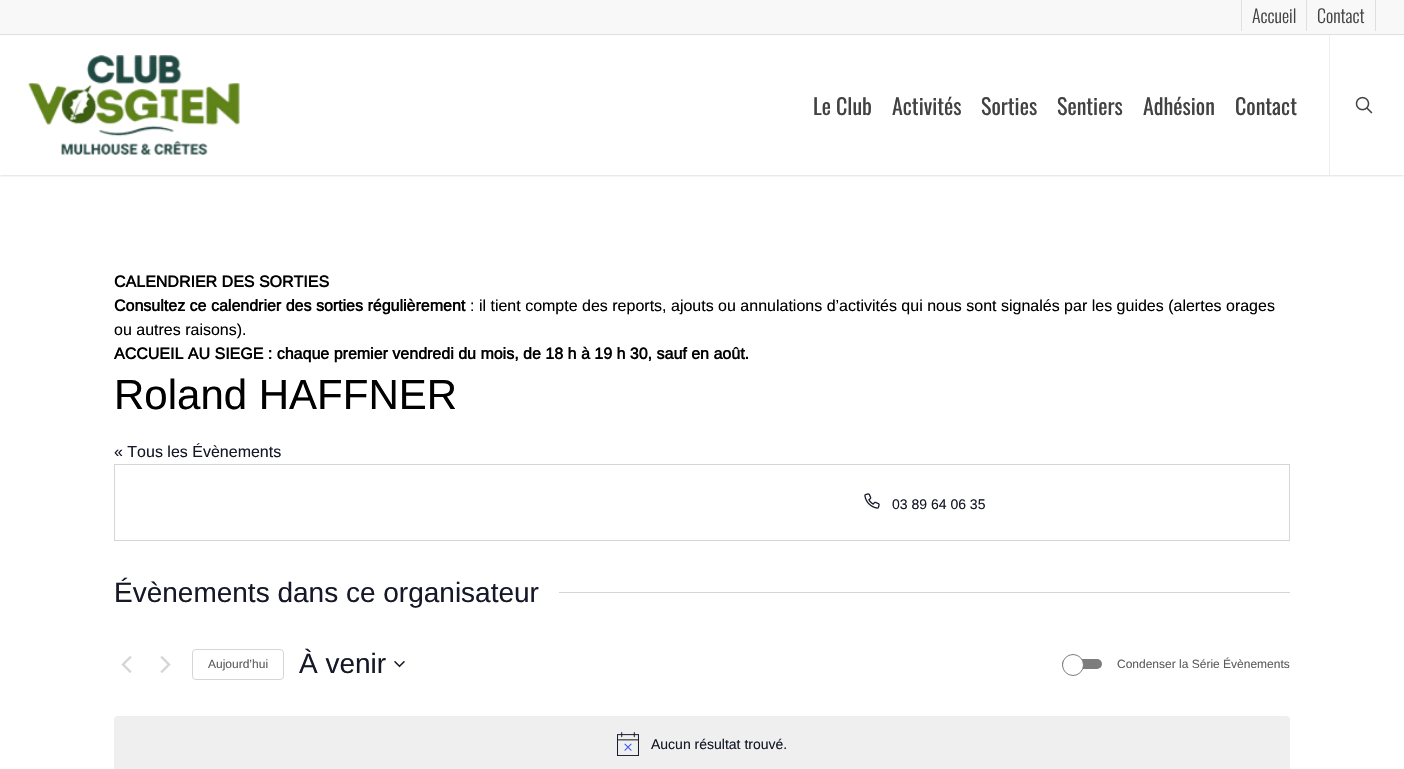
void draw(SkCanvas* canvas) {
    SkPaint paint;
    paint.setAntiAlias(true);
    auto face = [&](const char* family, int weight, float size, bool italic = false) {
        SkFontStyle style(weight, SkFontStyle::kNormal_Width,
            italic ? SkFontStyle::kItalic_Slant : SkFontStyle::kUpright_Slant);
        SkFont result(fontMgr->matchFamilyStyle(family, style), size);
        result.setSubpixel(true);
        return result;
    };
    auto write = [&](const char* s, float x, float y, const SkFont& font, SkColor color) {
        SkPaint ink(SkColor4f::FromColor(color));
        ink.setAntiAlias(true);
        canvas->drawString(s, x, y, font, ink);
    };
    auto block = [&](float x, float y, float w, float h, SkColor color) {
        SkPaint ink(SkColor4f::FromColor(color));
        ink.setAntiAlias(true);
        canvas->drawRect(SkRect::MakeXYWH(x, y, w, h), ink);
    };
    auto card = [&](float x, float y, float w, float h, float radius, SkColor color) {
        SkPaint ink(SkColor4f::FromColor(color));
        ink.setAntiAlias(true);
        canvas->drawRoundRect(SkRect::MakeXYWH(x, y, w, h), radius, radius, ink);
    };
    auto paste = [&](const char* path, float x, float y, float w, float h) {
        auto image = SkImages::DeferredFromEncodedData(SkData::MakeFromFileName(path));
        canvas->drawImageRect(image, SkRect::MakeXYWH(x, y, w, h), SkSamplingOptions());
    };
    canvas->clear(SK_ColorWHITE);
    canvas->save();
    canvas->clipRect(SkRect::MakeXYWH(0, 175, 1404, 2));
    paint.setColor(SkColorSetARGB(56, 0, 0, 0));
    paint.setMaskFilter(SkMaskFilter::MakeBlur(kNormal_SkBlurStyle, 1.5f));
    canvas->drawRect(SkRect::MakeXYWH(0, 0, 1404, 175), paint);
    paint.setMaskFilter(nullptr);
    canvas->restore();
    block(0, 0, 1404, 34, SkColorSetRGB(248, 248, 248));
    block(0, 34, 1404, 1, SkColorSetRGB(223, 223, 223));
    block(1241, 0, 1, 31, SkColorSetRGB(223, 223, 223));
    auto kFont1 = face("Oswald", 300, 18);
    write("Accueil", 1252, 23, kFont1, SkColorSetRGB(66, 66, 66));
    block(1375, 0, 1, 31, SkColorSetRGB(223, 223, 223));
    block(1306, 0, 1, 31, SkColorSetRGB(223, 223, 223));
    write("Contact", 1317, 23, kFont1, SkColorSetRGB(66, 66, 66));
    paste("pic1.png", 28, 55, 212, 100);
    auto kFont2 = face("Oswald", 400, 22);
    write("Le Club", 813, 115, kFont2, SkColorSetRGB(66, 66, 66));
    write("Activités", 892, 115, kFont2, SkColorSetRGB(66, 66, 66));
    write("Sorties", 981, 115, kFont2, SkColorSetRGB(66, 66, 66));
    write("Sentiers", 1057, 115, kFont2, SkColorSetRGB(66, 66, 66));
    write("Adhésion", 1143, 115, kFont2, SkColorSetRGB(66, 66, 66));
    write("Contact", 1235, 115, kFont2, SkColorSetRGB(66, 66, 66));
    block(1329, 35, 1, 140, SkColorSetRGB(237, 237, 237));
    paste("pic2.png", 1355, 96, 18, 18);
    auto kFont3 = face("Arimo", 700, 16);
    write("CALENDRIER DES SORTIES", 114, 287, kFont3, SK_ColorBLACK);
    write("Consultez ce calendrier des sorties régulièrement", 114, 311, kFont3, SK_ColorBLACK);
    auto kFont4 = face("Arimo", 400, 16);
    write(": il tient compte des reports, ajouts ou annulations d’activités qui nous sont signalés par les guides (alertes orages", 470, 311, kFont4, SK_ColorBLACK);
    write("ou autres raisons).", 114, 335, kFont4, SK_ColorBLACK);
    write("ACCUEIL AU SIEGE : chaque premier vendredi du mois, de 18 h à 19 h 30, sauf en août.", 114, 359, kFont3, SK_ColorBLACK);
    auto kFont5 = face("Arimo", 400, 42);
    write("Roland HAFFNER", 114, 409, kFont5, SK_ColorBLACK);
    write("« Tous les Évènements", 114, 457, kFont4, SkColorSetRGB(20, 24, 39));
    paint.setStyle(SkPaint::kStroke_Style);
    paint.setStrokeWidth(1);
    paint.setColor(SkColorSetRGB(213, 213, 213));
    canvas->drawRect(SkRect::MakeXYWH(114.5f, 464.5f, 1175, 76), paint);
    paste("pic3.png", 864, 493, 16, 16);
    auto kFont6 = face("Liberation Sans", 400, 14);
    write("03 89 64 06 35", 892, 509, kFont6, SkColorSetRGB(20, 24, 39));
    auto kFont7 = face("Liberation Sans", 400, 28);
    write("Évènements dans ce organisateur", 114, 602, kFont7, SkColorSetRGB(20, 24, 39));
    block(559, 592, 731, 1, SkColorSetRGB(213, 213, 213));
    paste("pic4.png", 121, 656, 11, 17);
    paste("pic5.png", 160, 656, 11, 17);
    canvas->drawRoundRect(SkRect::MakeXYWH(192.5f, 649.5f, 91, 30), 3.5f, 3.5f, paint);
    auto kFont8 = face("Liberation Sans", 400, 12);
    write("Aujourd’hui", 208, 668, kFont8, SkColorSetRGB(93, 93, 93));
    write("À venir", 299, 673, kFont7, SkColorSetRGB(20, 24, 39));
    paste("pic6.png", 394, 660, 11, 8);
    card(1062, 659, 40, 10, 5, SkColorSetRGB(125, 125, 125));
    paint.setStyle(SkPaint::kFill_Style);
    paint.setColor(SK_ColorWHITE);
    canvas->drawCircle(1073, 665, 10.5f, paint);
    paint.setStyle(SkPaint::kStroke_Style);
    paint.setColor(SkColorSetRGB(125, 125, 125));
    canvas->drawCircle(1073, 665, 10.5f, paint);
    write("Condenser la Série Évènements", 1117, 668, kFont8, SkColorSetRGB(93, 93, 93));
    card(114, 716, 1176, 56, 4, SkColorSetRGB(239, 239, 240));
    paste("pic7.png", 617, 732, 22, 24);
    write("Aucun résultat trouvé.", 651, 749, kFont6, SkColorSetRGB(20, 24, 39));
}
